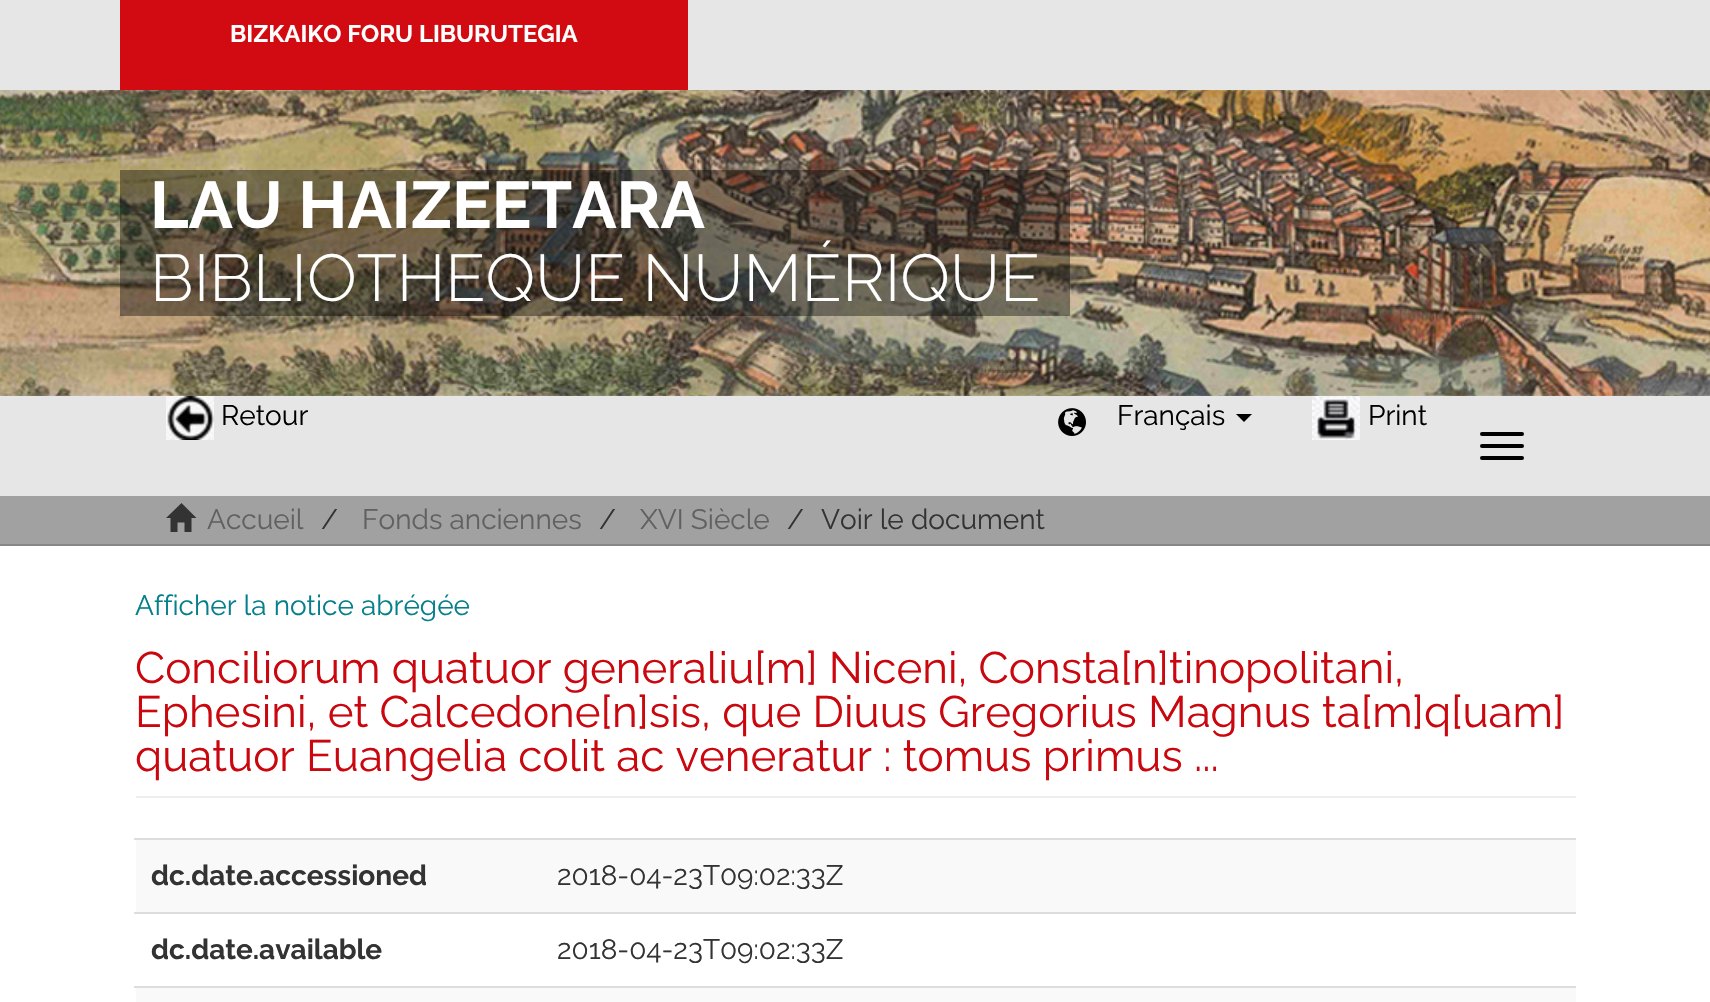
void draw(SkCanvas* canvas) {
    SkPaint paint;
    paint.setAntiAlias(true);
    auto face = [&](const char* family, int weight, float size, bool italic = false) {
        SkFontStyle style(weight, SkFontStyle::kNormal_Width,
            italic ? SkFontStyle::kItalic_Slant : SkFontStyle::kUpright_Slant);
        SkFont result(fontMgr->matchFamilyStyle(family, style), size);
        result.setSubpixel(true);
        return result;
    };
    auto write = [&](const char* s, float x, float y, const SkFont& font, SkColor color) {
        SkPaint ink(SkColor4f::FromColor(color));
        ink.setAntiAlias(true);
        canvas->drawString(s, x, y, font, ink);
    };
    auto block = [&](float x, float y, float w, float h, SkColor color) {
        SkPaint ink(SkColor4f::FromColor(color));
        ink.setAntiAlias(true);
        canvas->drawRect(SkRect::MakeXYWH(x, y, w, h), ink);
    };
    auto card = [&](float x, float y, float w, float h, float radius, SkColor color) {
        SkPaint ink(SkColor4f::FromColor(color));
        ink.setAntiAlias(true);
        canvas->drawRoundRect(SkRect::MakeXYWH(x, y, w, h), radius, radius, ink);
    };
    auto paste = [&](const char* path, float x, float y, float w, float h) {
        auto image = SkImages::DeferredFromEncodedData(SkData::MakeFromFileName(path));
        canvas->drawImageRect(image, SkRect::MakeXYWH(x, y, w, h), SkSamplingOptions());
    };
    canvas->clear(SK_ColorWHITE);
    block(0, 0, 1710, 90, SkColorSetRGB(230, 230, 230));
    block(120, 0, 568, 90, SkColorSetRGB(210, 10, 17));
    auto kFont1 = face("Raleway", 700, 24);
    write("BIZKAIKO FORU LIBURUTEGIA", 230, 42, kFont1, SK_ColorWHITE);
    paste("pic1.png", 0, 90, 1710, 306);
    block(120, 170, 950, 146, SkColorSetARGB(102, 0, 0, 0));
    auto kFont2 = face("Raleway", 700, 66);
    write("LAU HAIZEETARA", 150, 228, kFont2, SK_ColorWHITE);
    auto kFont3 = face("Raleway", 300, 66);
    write("BIBLIOTHEQUE NUMÉRIQUE", 150, 301, kFont3, SK_ColorWHITE);
    block(0, 396, 1710, 100, SkColorSetRGB(230, 230, 230));
    paste("pic2.png", 166, 396, 48, 44);
    auto kFont4 = face("Raleway", 400, 28);
    write("Retour", 221, 425, kFont4, SK_ColorBLACK);
    paste("pic3.png", 1058, 408, 28, 28);
    write("Français", 1117, 425, kFont4, SK_ColorBLACK);
    paint.setColor(SK_ColorBLACK);
    canvas->drawPath(SkPathBuilder().moveTo(1236, 414).lineTo(1252, 414).lineTo(1244, 422).close().detach(), paint);
    paste("pic4.png", 1312, 396, 48, 44);
    write("Print", 1368, 425, kFont4, SK_ColorBLACK);
    card(1480, 432, 44, 4, 2, SK_ColorBLACK);
    card(1480, 444, 44, 4, 2, SK_ColorBLACK);
    card(1480, 456, 44, 4, 2, SK_ColorBLACK);
    block(0, 496, 1710, 48, SkColorSetRGB(161, 161, 161));
    block(0, 544, 1710, 2, SkColorSetRGB(135, 135, 135));
    paint.setColor(SkColorSetRGB(51, 51, 51));
    canvas->drawPath(SkPathBuilder().moveTo(166, 518).lineTo(181.5f, 503).lineTo(196.5f, 518).lineTo(191.5f, 518).lineTo(191.5f, 532).lineTo(184.5f, 532).lineTo(184.5f, 522.5f).lineTo(177.5f, 522.5f).lineTo(177.5f, 532).lineTo(170.5f, 532).lineTo(170.5f, 518).close().detach(), paint);
    write("Accueil", 207, 529, kFont4, SkColorSetRGB(97, 97, 97));
    write("/", 321, 529, kFont4, SkColorSetRGB(51, 51, 51));
    write("Fonds anciennes", 362, 529, kFont4, SkColorSetRGB(97, 97, 97));
    write("/", 599, 529, kFont4, SkColorSetRGB(51, 51, 51));
    write("XVI Siècle", 640, 529, kFont4, SkColorSetRGB(97, 97, 97));
    write("/", 787, 529, kFont4, SkColorSetRGB(51, 51, 51));
    write("Voir le document", 821, 529, kFont4, SkColorSetRGB(51, 51, 51));
    write("Afficher la notice abrégée", 135, 615, kFont4, SkColorSetRGB(6, 127, 141));
    block(136, 796, 1440, 2, SkColorSetRGB(238, 238, 238));
    auto kFont5 = face("Raleway", 400, 44);
    write("Conciliorum quatuor generaliu[m] Niceni, Consta[n]tinopolitani,", 135, 683, kFont5, SkColorSetRGB(202, 7, 14));
    write("Ephesini, et Calcedone[n]sis, que Diuus Gregorius Magnus ta[m]q[uam]", 135, 727, kFont5, SkColorSetRGB(202, 7, 14));
    write("quatuor Euangelia colit ac veneratur : tomus primus ...", 135, 771, kFont5, SkColorSetRGB(202, 7, 14));
    block(136, 840, 1440, 72, SkColorSetRGB(249, 249, 249));
    block(134, 838, 1442, 2, SkColorSetRGB(221, 221, 221));
    auto kFont6 = face("Raleway", 700, 28);
    write("dc.date.accessioned", 151, 885, kFont6, SkColorSetRGB(51, 51, 51));
    write("2018-04-23T09:02:33Z", 557, 885, kFont4, SkColorSetRGB(51, 51, 51));
    block(134, 912, 1442, 2, SkColorSetRGB(221, 221, 221));
    write("dc.date.available", 151, 959, kFont6, SkColorSetRGB(51, 51, 51));
    write("2018-04-23T09:02:33Z", 557, 959, kFont4, SkColorSetRGB(51, 51, 51));
    block(136, 988, 1440, 14, SkColorSetRGB(249, 249, 249));
    block(134, 986, 1442, 2, SkColorSetRGB(221, 221, 221));
}
